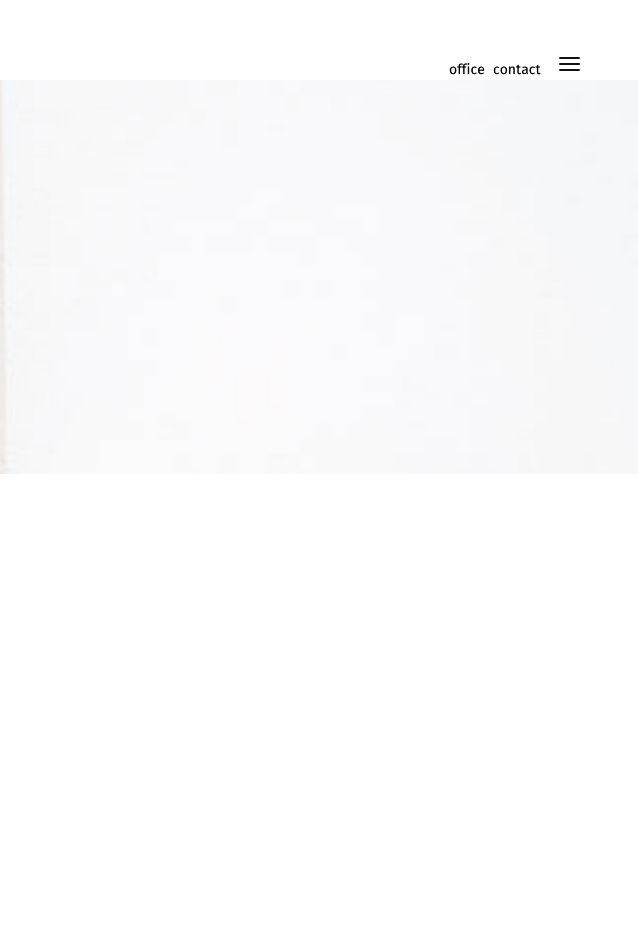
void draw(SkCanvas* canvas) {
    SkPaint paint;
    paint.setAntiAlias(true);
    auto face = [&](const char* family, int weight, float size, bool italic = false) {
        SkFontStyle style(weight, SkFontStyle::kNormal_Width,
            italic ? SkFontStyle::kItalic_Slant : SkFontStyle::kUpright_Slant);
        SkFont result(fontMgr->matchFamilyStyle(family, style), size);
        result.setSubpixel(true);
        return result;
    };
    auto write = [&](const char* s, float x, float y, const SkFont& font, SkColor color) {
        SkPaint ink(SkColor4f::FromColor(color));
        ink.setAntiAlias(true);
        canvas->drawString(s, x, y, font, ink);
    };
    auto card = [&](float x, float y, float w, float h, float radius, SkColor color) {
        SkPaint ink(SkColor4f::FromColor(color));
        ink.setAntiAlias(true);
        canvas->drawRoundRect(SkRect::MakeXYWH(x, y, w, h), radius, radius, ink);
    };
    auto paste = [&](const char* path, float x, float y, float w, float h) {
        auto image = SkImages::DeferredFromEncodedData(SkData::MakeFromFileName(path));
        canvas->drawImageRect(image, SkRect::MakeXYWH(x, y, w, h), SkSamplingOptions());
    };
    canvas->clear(SK_ColorWHITE);
    auto kFont1 = face("Fira Sans", 400, 14);
    write("office", 449, 74, kFont1, SK_ColorBLACK);
    write("contact", 493, 74, kFont1, SK_ColorBLACK);
    card(559, 63, 21, 2, 1, SkColorSetRGB(18, 18, 18));
    card(559, 57, 21, 2, 1, SkColorSetRGB(18, 18, 18));
    card(559, 69, 21, 2, 1, SkColorSetRGB(18, 18, 18));
    paste("pic1.png", 0, 80, 638, 394);
}
